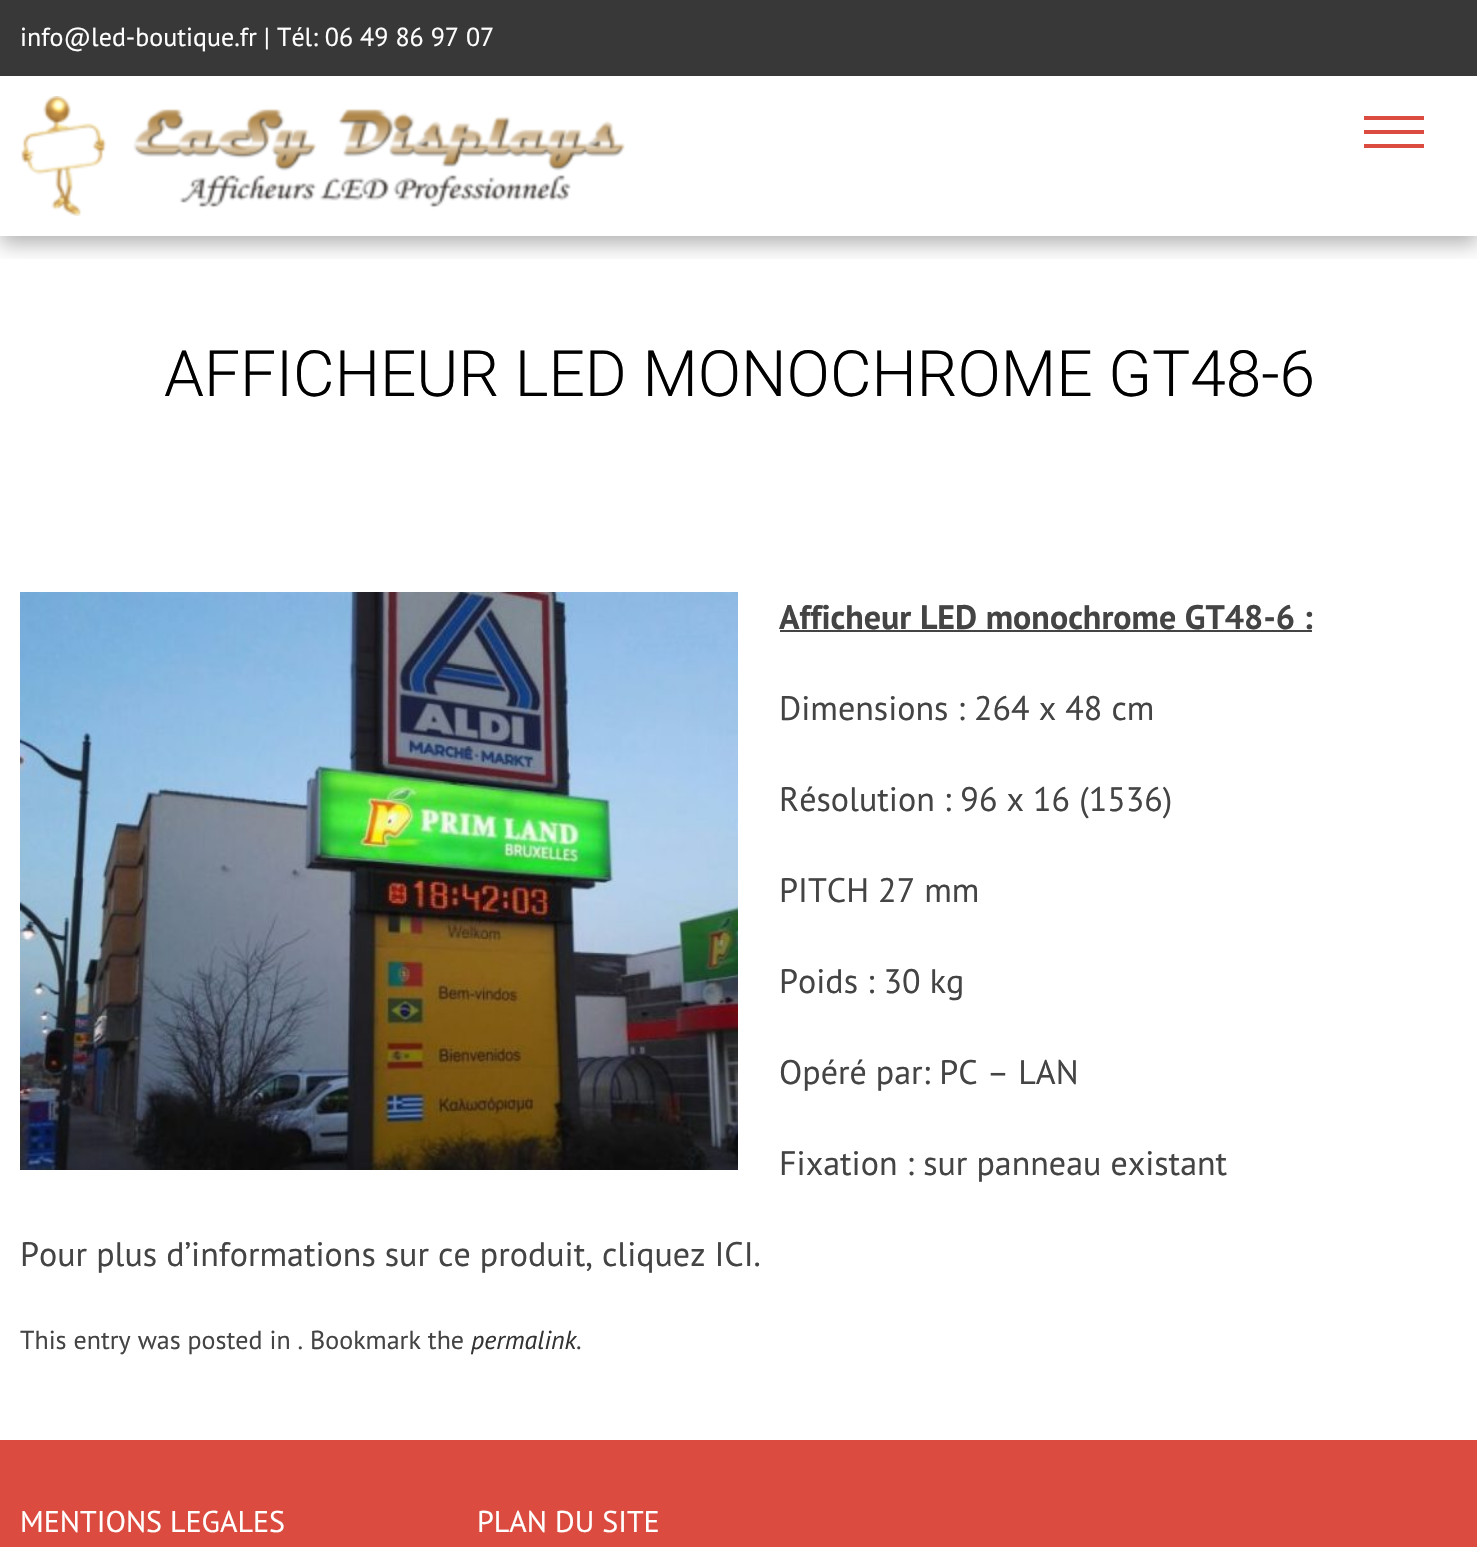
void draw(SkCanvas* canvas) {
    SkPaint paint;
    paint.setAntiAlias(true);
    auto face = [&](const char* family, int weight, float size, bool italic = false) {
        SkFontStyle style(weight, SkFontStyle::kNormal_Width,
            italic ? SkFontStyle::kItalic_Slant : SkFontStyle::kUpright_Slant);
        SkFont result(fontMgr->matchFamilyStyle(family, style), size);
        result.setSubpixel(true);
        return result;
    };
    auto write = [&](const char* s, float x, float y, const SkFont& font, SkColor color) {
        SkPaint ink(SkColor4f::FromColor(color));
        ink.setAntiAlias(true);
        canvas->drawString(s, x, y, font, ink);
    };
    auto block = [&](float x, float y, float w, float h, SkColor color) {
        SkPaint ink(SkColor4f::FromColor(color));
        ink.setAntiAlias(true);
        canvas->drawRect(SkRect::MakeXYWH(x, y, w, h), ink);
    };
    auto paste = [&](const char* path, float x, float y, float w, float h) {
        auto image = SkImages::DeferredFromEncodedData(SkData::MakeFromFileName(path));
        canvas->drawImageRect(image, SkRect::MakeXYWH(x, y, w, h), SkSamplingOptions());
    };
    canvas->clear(SK_ColorWHITE);
    canvas->save();
    canvas->clipRect(SkRect::MakeXYWH(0, 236, 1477, 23));
    paint.setColor(SkColorSetARGB(77, 0, 0, 0));
    paint.setMaskFilter(SkMaskFilter::MakeBlur(kNormal_SkBlurStyle, 10));
    canvas->drawRect(SkRect::MakeXYWH(0, 84, 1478, 160), paint);
    paint.setMaskFilter(nullptr);
    canvas->restore();
    block(0, 0, 1477, 76, SkColorSetRGB(56, 56, 56));
    auto kFont1 = face("PT Sans", 400, 26);
    write("info@led-boutique.fr | Tél: 06 49 86 97 07", 20, 46, kFont1, SK_ColorWHITE);
    paste("pic1.png", 21, 96, 604, 120);
    block(1364, 116, 60, 4, SkColorSetRGB(219, 75, 63));
    block(1364, 130, 60, 4, SkColorSetRGB(219, 75, 63));
    block(1364, 144, 60, 4, SkColorSetRGB(219, 75, 63));
    auto kFont2 = face("Roboto", 300, 64);
    write("AFFICHEUR LED MONOCHROME GT48-6", 164, 396, kFont2, SK_ColorBLACK);
    paste("pic2.png", 20, 592, 718, 578);
    auto kFont3 = face("PT Sans", 700, 34);
    write("Afficheur LED monochrome GT48-6 :", 779, 629, kFont3, SkColorSetRGB(68, 68, 68));
    block(780, 630, 532, 2, SkColorSetRGB(68, 68, 68));
    auto kFont4 = face("PT Sans", 400, 34);
    write("Dimensions : 264 x 48 cm", 779, 720, kFont4, SkColorSetRGB(68, 68, 68));
    write("Résolution : 96 x 16 (1536)", 779, 811, kFont4, SkColorSetRGB(68, 68, 68));
    write("PITCH 27 mm", 779, 902, kFont4, SkColorSetRGB(68, 68, 68));
    write("Poids : 30 kg", 779, 993, kFont4, SkColorSetRGB(68, 68, 68));
    write("Opéré par: PC – LAN", 779, 1084, kFont4, SkColorSetRGB(68, 68, 68));
    write("Fixation : sur panneau existant", 779, 1175, kFont4, SkColorSetRGB(68, 68, 68));
    write("Pour plus d’informations sur ce produit, cliquez ICI.", 20, 1266, kFont4, SkColorSetRGB(68, 68, 68));
    write("This entry was posted in . Bookmark the", 20, 1349, kFont1, SkColorSetRGB(68, 68, 68));
    auto kFont5 = face("PT Sans", 400, 26, true);
    write("permalink", 471, 1349, kFont5, SkColorSetRGB(51, 51, 51));
    write(".", 576, 1349, kFont1, SkColorSetRGB(68, 68, 68));
    block(0, 1440, 1477, 107, SkColorSetRGB(219, 75, 63));
    auto kFont6 = face("PT Sans", 400, 30);
    write("MENTIONS LEGALES", 20, 1532, kFont6, SK_ColorWHITE);
    write("PLAN DU SITE", 477, 1532, kFont6, SK_ColorWHITE);
}
